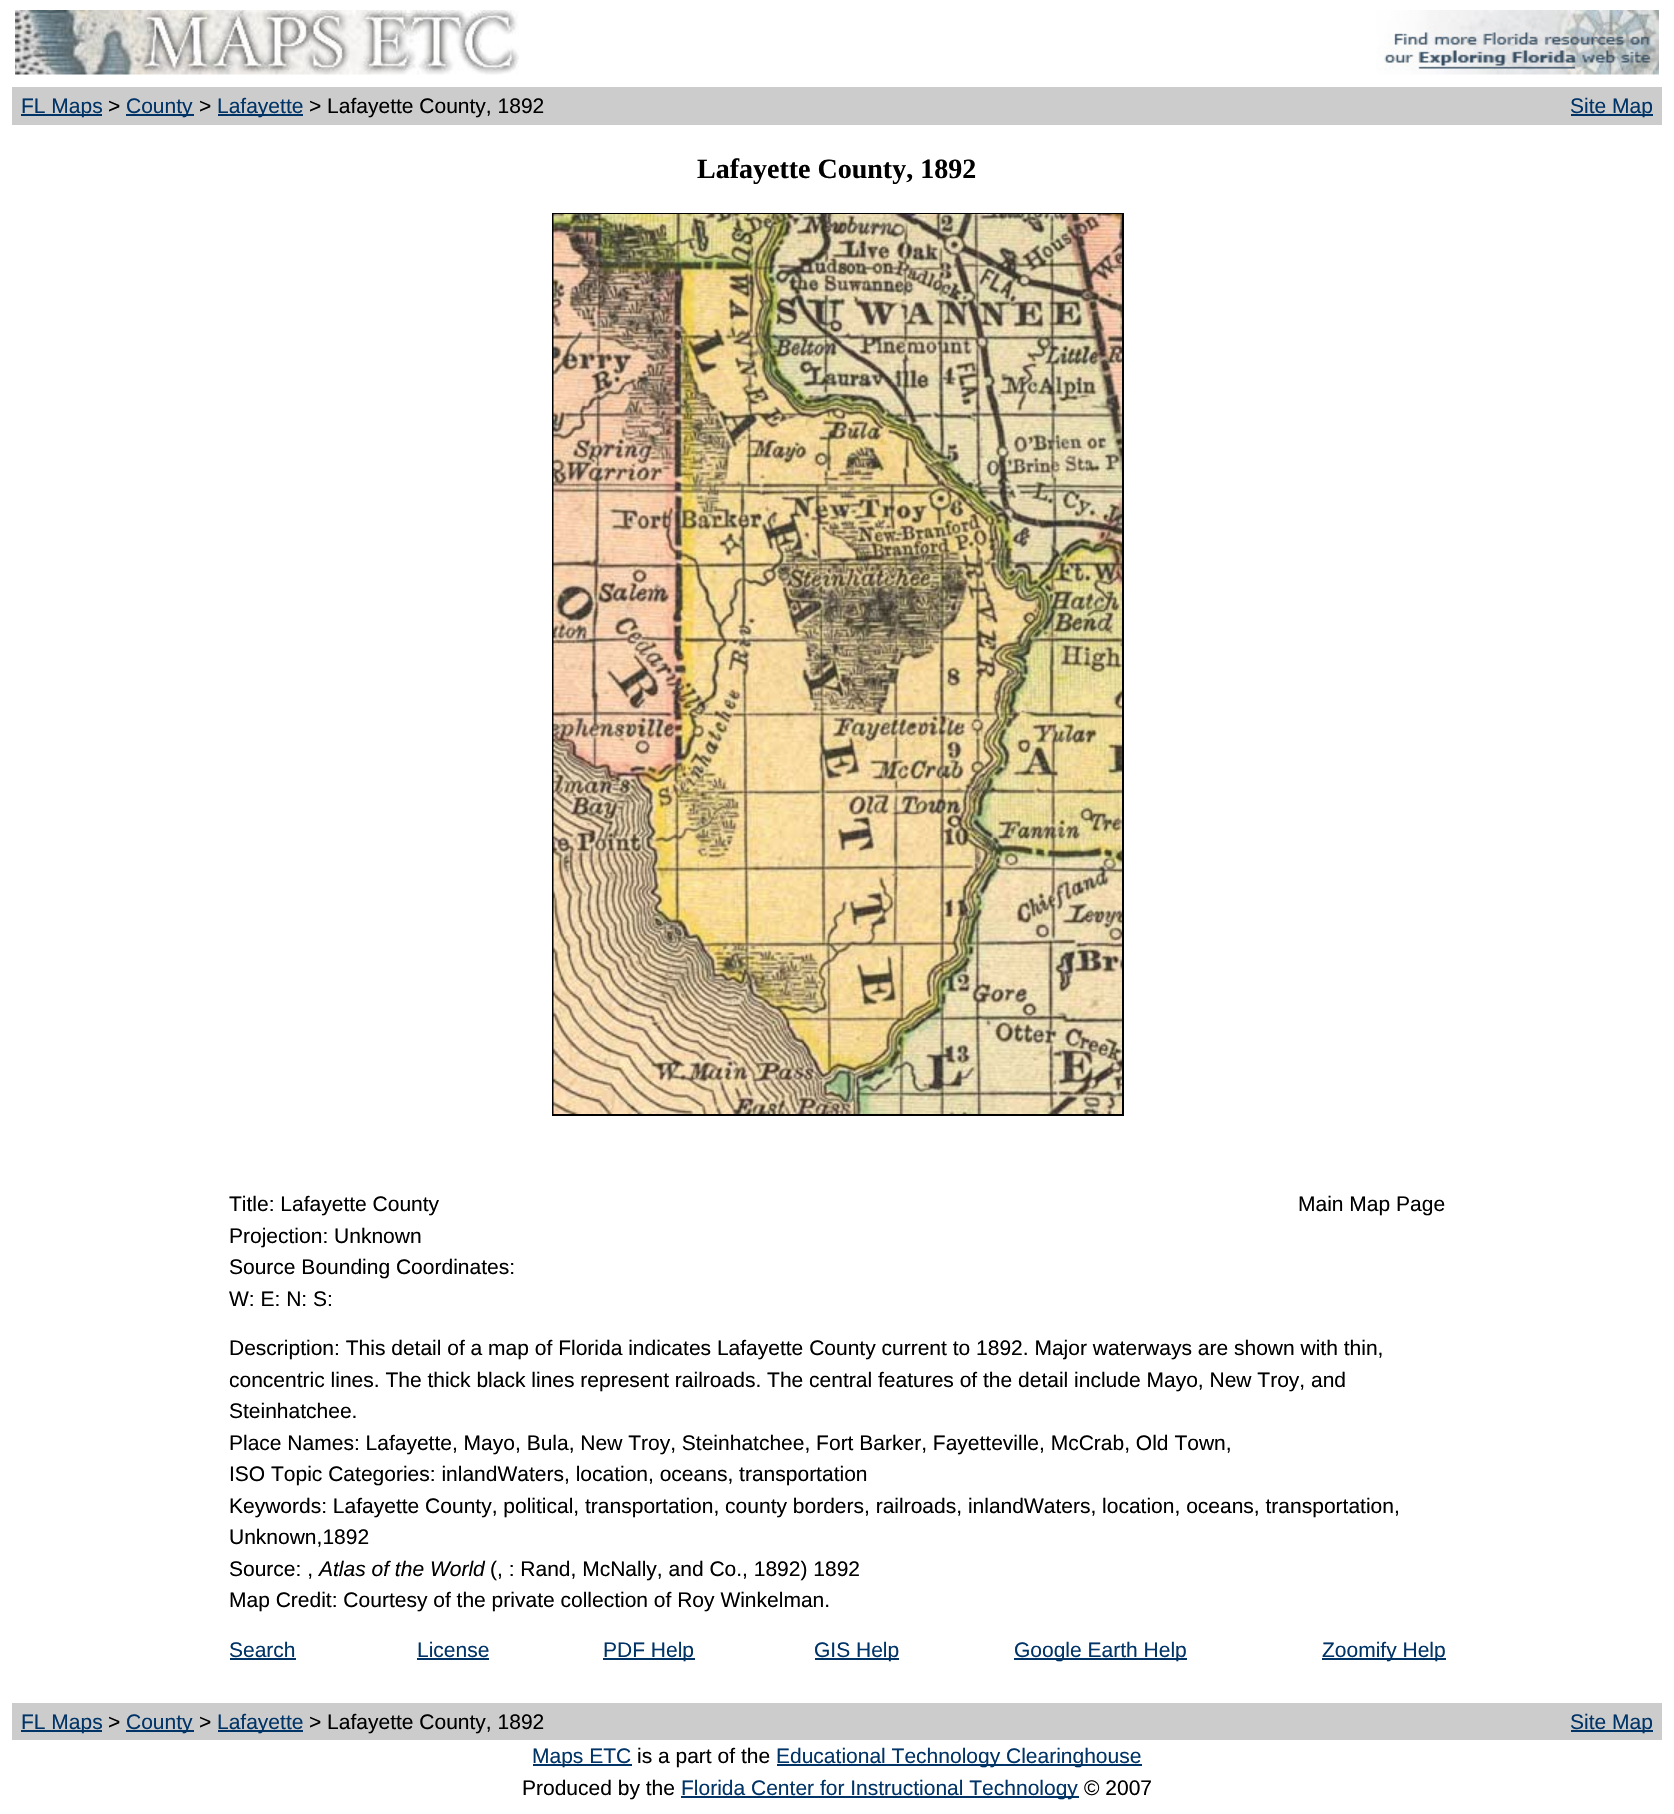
void draw(SkCanvas* canvas) {
    SkPaint paint;
    paint.setAntiAlias(true);
    auto face = [&](const char* family, int weight, float size, bool italic = false) {
        SkFontStyle style(weight, SkFontStyle::kNormal_Width,
            italic ? SkFontStyle::kItalic_Slant : SkFontStyle::kUpright_Slant);
        SkFont result(fontMgr->matchFamilyStyle(family, style), size);
        result.setSubpixel(true);
        return result;
    };
    auto write = [&](const char* s, float x, float y, const SkFont& font, SkColor color) {
        SkPaint ink(SkColor4f::FromColor(color));
        ink.setAntiAlias(true);
        canvas->drawString(s, x, y, font, ink);
    };
    auto block = [&](float x, float y, float w, float h, SkColor color) {
        SkPaint ink(SkColor4f::FromColor(color));
        ink.setAntiAlias(true);
        canvas->drawRect(SkRect::MakeXYWH(x, y, w, h), ink);
    };
    auto paste = [&](const char* path, float x, float y, float w, float h) {
        auto image = SkImages::DeferredFromEncodedData(SkData::MakeFromFileName(path));
        canvas->drawImageRect(image, SkRect::MakeXYWH(x, y, w, h), SkSamplingOptions());
    };
    canvas->clear(SK_ColorWHITE);
    paste("pic1.png", 15, 10, 504, 65);
    paste("pic2.png", 1376, 10, 283, 65);
    block(12, 87, 1650, 38, SkColorSetRGB(204, 204, 204));
    block(21, 114, 81, 2, SkColorSetRGB(0, 51, 102));
    auto kFont1 = face("Liberation Sans", 400, 21);
    write("FL Maps", 21, 113, kFont1, SkColorSetRGB(0, 51, 102));
    write(">", 108, 113, kFont1, SK_ColorBLACK);
    block(126, 114, 68, 2, SkColorSetRGB(0, 51, 102));
    write("County", 126, 113, kFont1, SkColorSetRGB(0, 51, 102));
    write(">", 199, 113, kFont1, SK_ColorBLACK);
    block(218, 114, 85, 2, SkColorSetRGB(0, 51, 102));
    write("Lafayette", 217, 113, kFont1, SkColorSetRGB(0, 51, 102));
    write("> Lafayette County, 1892", 309, 113, kFont1, SK_ColorBLACK);
    block(1571, 114, 82, 2, SkColorSetRGB(0, 51, 102));
    write("Site Map", 1570, 113, kFont1, SkColorSetRGB(0, 51, 102));
    auto kFont2 = face("Liberation Serif", 700, 28);
    write("Lafayette County, 1892", 697, 178, kFont2, SK_ColorBLACK);
    paint.setStyle(SkPaint::kStroke_Style);
    paint.setStrokeWidth(2);
    paint.setColor(SK_ColorBLACK);
    canvas->drawRect(SkRect::MakeXYWH(553, 214, 570, 901), paint);
    paste("pic3.png", 553, 214, 569, 900);
    write("Title: Lafayette County", 229, 1211, kFont1, SK_ColorBLACK);
    write("Projection: Unknown", 229, 1243, kFont1, SK_ColorBLACK);
    write("Source Bounding Coordinates:", 229, 1274, kFont1, SK_ColorBLACK);
    write("W: E: N: S:", 229, 1306, kFont1, SK_ColorBLACK);
    write("Main Map Page", 1298, 1211, kFont1, SK_ColorBLACK);
    write("Description: This detail of a map of Florida indicates Lafayette County current to 1892. Major waterways are shown with thin,", 229, 1355, kFont1, SK_ColorBLACK);
    write("concentric lines. The thick black lines represent railroads. The central features of the detail include Mayo, New Troy, and", 229, 1387, kFont1, SK_ColorBLACK);
    write("Steinhatchee.", 229, 1418, kFont1, SK_ColorBLACK);
    write("Place Names: Lafayette, Mayo, Bula, New Troy, Steinhatchee, Fort Barker, Fayetteville, McCrab, Old Town,", 229, 1450, kFont1, SK_ColorBLACK);
    write("ISO Topic Categories: inlandWaters, location, oceans, transportation", 229, 1481, kFont1, SK_ColorBLACK);
    write("Keywords: Lafayette County, political, transportation, county borders, railroads, inlandWaters, location, oceans, transportation,", 229, 1513, kFont1, SK_ColorBLACK);
    write("Unknown,1892", 229, 1544, kFont1, SK_ColorBLACK);
    write("Source: ,", 229, 1576, kFont1, SK_ColorBLACK);
    auto kFont3 = face("Liberation Sans", 400, 21, true);
    write("Atlas of the World", 319, 1576, kFont3, SK_ColorBLACK);
    write("(, : Rand, McNally, and Co., 1892) 1892", 490, 1576, kFont1, SK_ColorBLACK);
    write("Map Credit: Courtesy of the private collection of Roy Winkelman.", 229, 1607, kFont1, SK_ColorBLACK);
    write("Search", 229, 1657, kFont1, SkColorSetRGB(0, 51, 102));
    block(230, 1658, 66, 2, SkColorSetRGB(0, 51, 102));
    write("License", 417, 1657, kFont1, SkColorSetRGB(0, 51, 102));
    block(417, 1658, 72, 2, SkColorSetRGB(0, 51, 102));
    block(603, 1658, 92, 2, SkColorSetRGB(0, 51, 102));
    write("PDF Help", 603, 1657, kFont1, SkColorSetRGB(0, 51, 102));
    block(815, 1658, 84, 2, SkColorSetRGB(0, 51, 102));
    write("GIS Help", 814, 1657, kFont1, SkColorSetRGB(0, 51, 102));
    block(1014, 1658, 173, 2, SkColorSetRGB(0, 51, 102));
    write("Google Earth Help", 1014, 1657, kFont1, SkColorSetRGB(0, 51, 102));
    block(1322, 1658, 124, 2, SkColorSetRGB(0, 51, 102));
    write("Zoomify Help", 1322, 1657, kFont1, SkColorSetRGB(0, 51, 102));
    block(12, 1703, 1650, 37, SkColorSetRGB(204, 204, 204));
    block(21, 1730, 81, 2, SkColorSetRGB(0, 51, 102));
    write("FL Maps", 21, 1729, kFont1, SkColorSetRGB(0, 51, 102));
    write(">", 108, 1729, kFont1, SK_ColorBLACK);
    block(126, 1730, 68, 2, SkColorSetRGB(0, 51, 102));
    write("County", 126, 1729, kFont1, SkColorSetRGB(0, 51, 102));
    write(">", 199, 1729, kFont1, SK_ColorBLACK);
    block(218, 1730, 85, 2, SkColorSetRGB(0, 51, 102));
    write("Lafayette", 217, 1729, kFont1, SkColorSetRGB(0, 51, 102));
    write("> Lafayette County, 1892", 309, 1729, kFont1, SK_ColorBLACK);
    block(1571, 1730, 82, 2, SkColorSetRGB(0, 51, 102));
    write("Site Map", 1570, 1729, kFont1, SkColorSetRGB(0, 51, 102));
    block(533, 1764, 99, 2, SkColorSetRGB(0, 51, 102));
    write("Maps ETC", 532, 1763, kFont1, SkColorSetRGB(0, 51, 102));
    write("is a part of the", 637, 1763, kFont1, SK_ColorBLACK);
    block(777, 1764, 365, 2, SkColorSetRGB(0, 51, 102));
    write("Educational Technology Clearinghouse", 776, 1763, kFont1, SkColorSetRGB(0, 51, 102));
    write("Produced by the", 522, 1795, kFont1, SK_ColorBLACK);
    block(681, 1796, 398, 2, SkColorSetRGB(0, 51, 102));
    write("Florida Center for Instructional Technology", 681, 1795, kFont1, SkColorSetRGB(0, 51, 102));
    write("© 2007", 1084, 1795, kFont1, SK_ColorBLACK);
}
